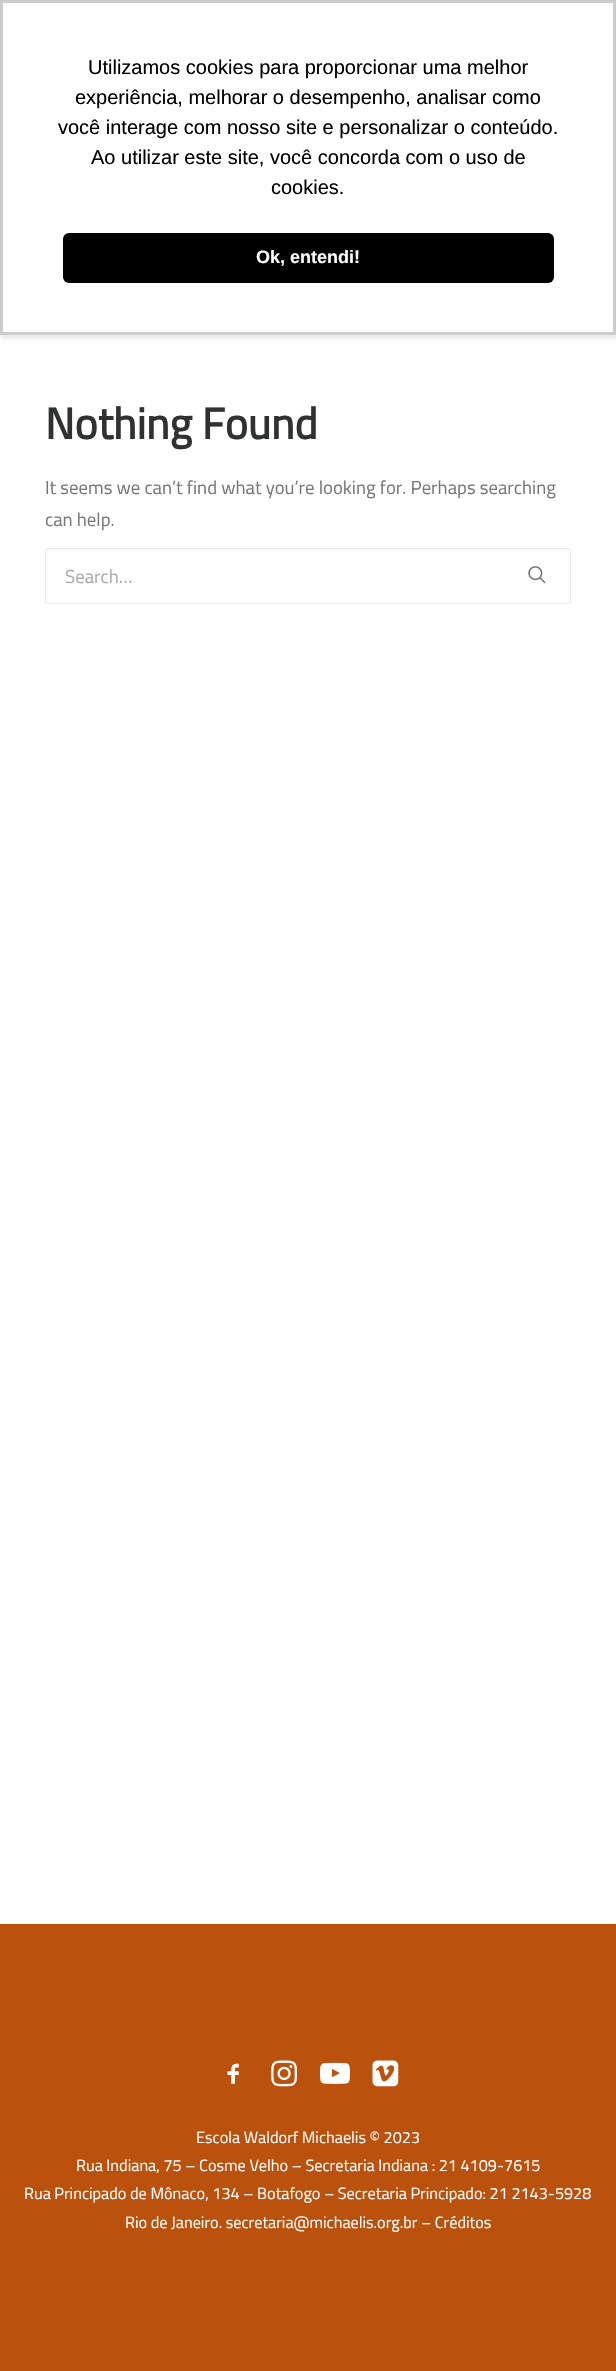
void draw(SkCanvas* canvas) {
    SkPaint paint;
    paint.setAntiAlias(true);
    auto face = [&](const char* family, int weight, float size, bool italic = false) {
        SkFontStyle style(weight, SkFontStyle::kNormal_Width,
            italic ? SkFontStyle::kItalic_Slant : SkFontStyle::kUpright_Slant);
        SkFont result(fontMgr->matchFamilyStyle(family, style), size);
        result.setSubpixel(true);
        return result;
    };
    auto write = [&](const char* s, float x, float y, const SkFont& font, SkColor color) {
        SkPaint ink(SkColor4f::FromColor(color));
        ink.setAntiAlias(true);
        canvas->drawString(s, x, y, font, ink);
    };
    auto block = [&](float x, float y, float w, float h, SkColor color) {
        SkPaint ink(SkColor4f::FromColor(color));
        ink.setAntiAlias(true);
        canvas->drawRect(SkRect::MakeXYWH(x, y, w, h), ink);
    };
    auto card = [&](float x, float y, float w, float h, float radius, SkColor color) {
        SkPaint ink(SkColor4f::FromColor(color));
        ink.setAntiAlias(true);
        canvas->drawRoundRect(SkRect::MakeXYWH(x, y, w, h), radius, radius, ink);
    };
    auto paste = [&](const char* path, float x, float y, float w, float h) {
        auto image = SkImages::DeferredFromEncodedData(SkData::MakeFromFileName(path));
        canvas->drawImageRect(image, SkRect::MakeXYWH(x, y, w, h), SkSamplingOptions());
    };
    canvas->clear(SK_ColorWHITE);
    paint.setColor(SkColorSetARGB(26, 0, 0, 0));
    paint.setMaskFilter(SkMaskFilter::MakeBlur(kNormal_SkBlurStyle, 2.5f));
    canvas->drawRect(SkRect::MakeXYWH(1, 3, 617, 335), paint);
    paint.setMaskFilter(nullptr);
    paint.setColor(SK_ColorWHITE);
    canvas->drawRect(SkRect::MakeXYWH(1.5f, 1.5f, 613, 332), paint);
    paint.setStyle(SkPaint::kStroke_Style);
    paint.setStrokeWidth(3);
    paint.setColor(SkColorSetRGB(204, 204, 204));
    canvas->drawRect(SkRect::MakeXYWH(1.5f, 1.5f, 613, 332), paint);
    auto kFont1 = face("Liberation Sans", 400, 20);
    write("Utilizamos cookies para proporcionar uma melhor", 88, 74, kFont1, SK_ColorBLACK);
    write("experiência, melhorar o desempenho, analisar como", 75, 104, kFont1, SK_ColorBLACK);
    write("você interage com nosso site e personalizar o conteúdo.", 58, 134, kFont1, SK_ColorBLACK);
    write("Ao utilizar este site, você concorda com o uso de", 91, 164, kFont1, SK_ColorBLACK);
    write("cookies.", 271, 194, kFont1, SK_ColorBLACK);
    card(63, 233, 491, 50, 6, SK_ColorBLACK);
    auto kFont2 = face("Liberation Sans", 700, 18);
    write("Ok, entendi!", 256, 263, kFont2, SK_ColorWHITE);
    auto kFont3 = face("Titillium Web", 700, 43.75f);
    write("Nothing Found", 45, 439, kFont3, SkColorSetRGB(48, 49, 51));
    auto kFont4 = face("Titillium Web", 400, 18.75f);
    write("It seems we can’t find what you’re looking for. Perhaps searching", 45, 494, kFont4, SkColorSetRGB(119, 119, 119));
    write("can help.", 45, 526, kFont4, SkColorSetRGB(119, 119, 119));
    paint.setStyle(SkPaint::kFill_Style);
    paint.setColor(SkColorSetRGB(249, 249, 249));
    canvas->drawPath(SkPathBuilder().moveTo(48, 551).lineTo(569, 551).lineTo(570, 552).lineTo(570, 550).cubicTo(570, 549, 570, 549, 569, 549).lineTo(47, 549).cubicTo(46, 549, 46, 549, 46, 550).lineTo(46, 552).close().detach(), paint);
    paint.setStyle(SkPaint::kStroke_Style);
    paint.setStrokeWidth(1);
    paint.setColor(SkColorSetRGB(234, 234, 234));
    canvas->drawRoundRect(SkRect::MakeXYWH(45.5f, 548.5f, 525, 55), 2, 2, paint);
    write("Search…", 65, 583, kFont4, SkColorSetRGB(169, 169, 169));
    paste("pic1.png", 528, 566, 18, 18);
    block(0, 1924, 616, 447, SkColorSetRGB(186, 81, 12));
    paste("pic2.png", 227, 2063, 12, 21);
    paste("pic3.png", 271, 2060, 26, 27);
    paste("pic4.png", 320, 2062, 30, 22);
    paste("pic5.png", 372, 2060, 27, 27);
    auto kFont5 = face("Titillium Web", 400, 16.25f);
    write("Escola Waldorf Michaelis © 2023", 196, 2143, kFont5, SK_ColorWHITE);
    write("Rua Indiana, 75 – Cosme Velho – Secretaria Indiana : 21 4109-7615", 76, 2171, kFont5, SK_ColorWHITE);
    write("Rua Principado de Mônaco, 134 – Botafogo – Secretaria Principado: 21 2143-5928", 24, 2199, kFont5, SK_ColorWHITE);
    write("Rio de Janeiro. secretaria@michaelis.org.br – Créditos", 125, 2228, kFont5, SK_ColorWHITE);
}
